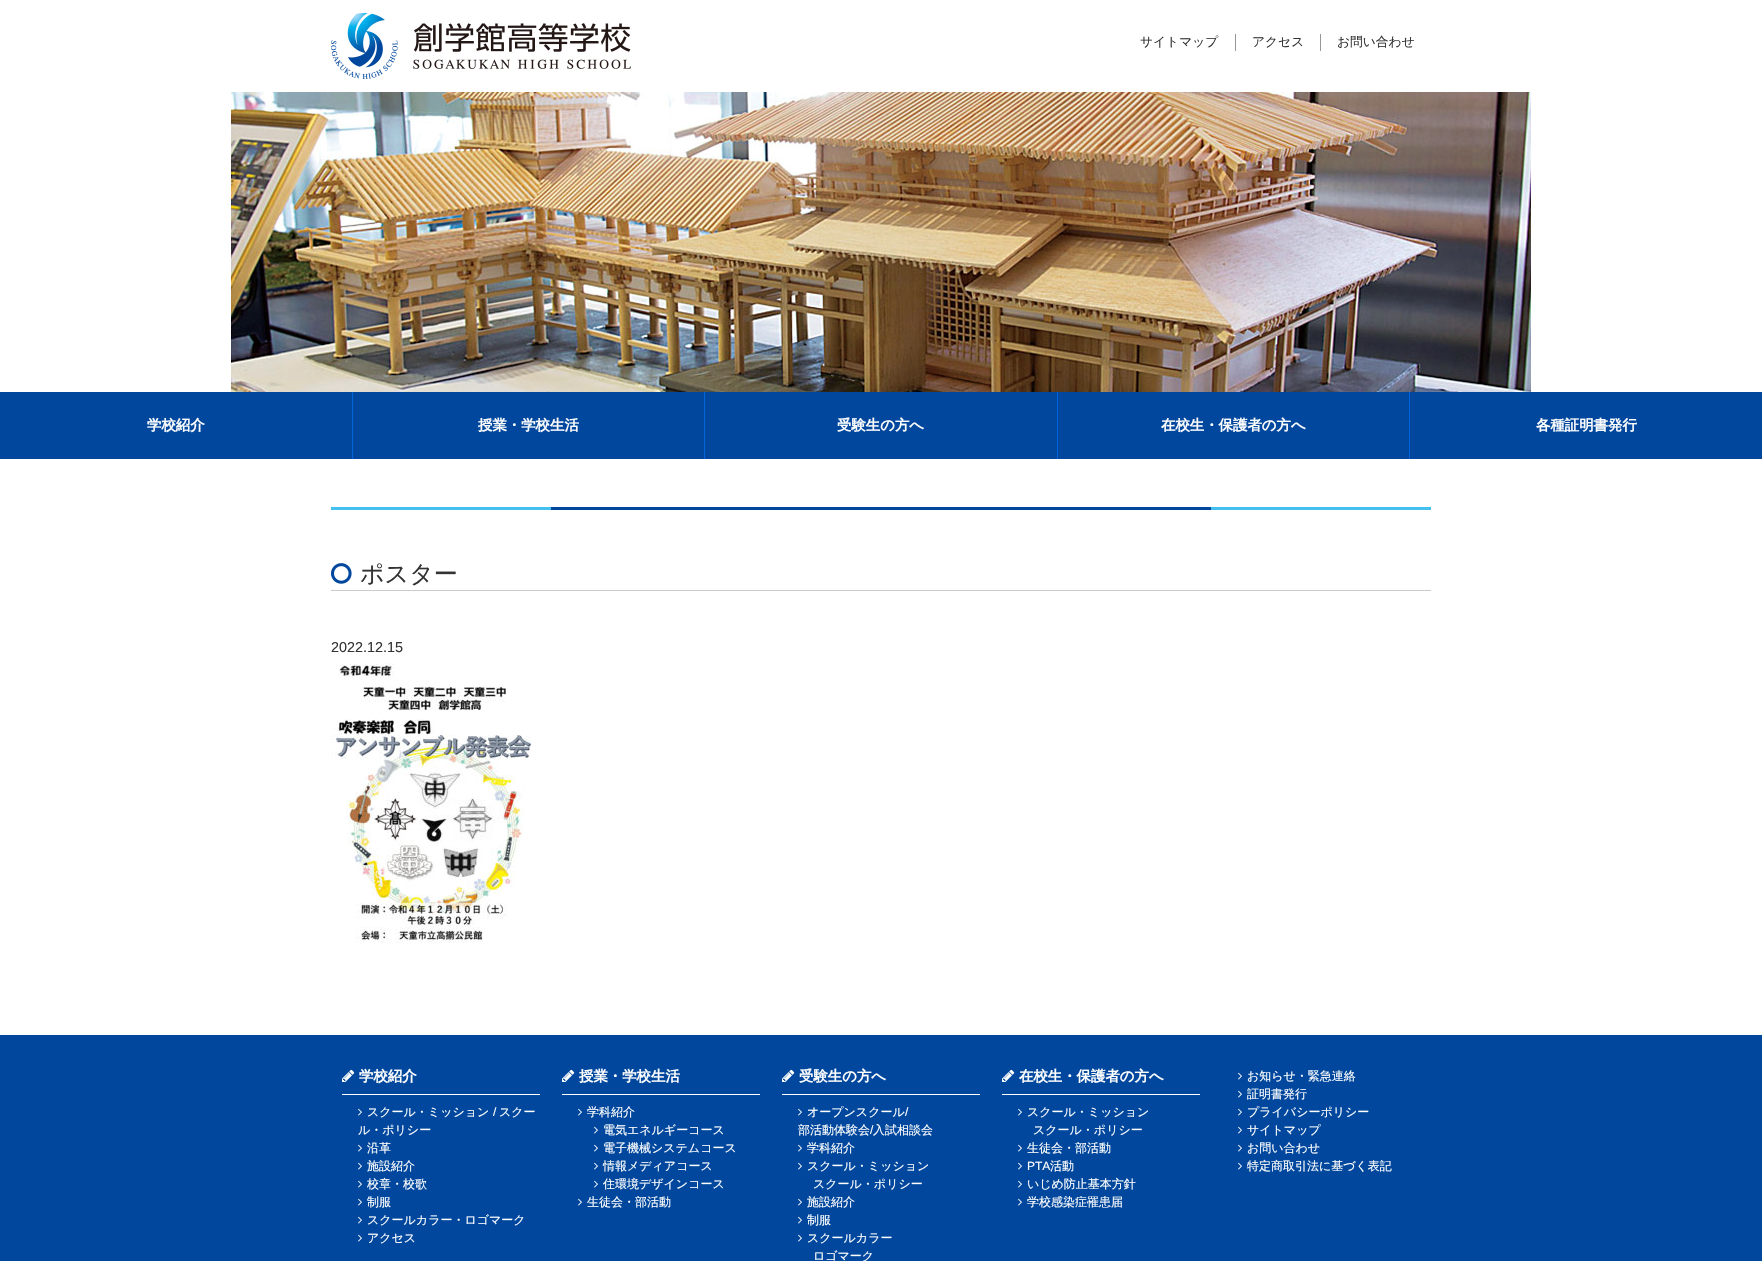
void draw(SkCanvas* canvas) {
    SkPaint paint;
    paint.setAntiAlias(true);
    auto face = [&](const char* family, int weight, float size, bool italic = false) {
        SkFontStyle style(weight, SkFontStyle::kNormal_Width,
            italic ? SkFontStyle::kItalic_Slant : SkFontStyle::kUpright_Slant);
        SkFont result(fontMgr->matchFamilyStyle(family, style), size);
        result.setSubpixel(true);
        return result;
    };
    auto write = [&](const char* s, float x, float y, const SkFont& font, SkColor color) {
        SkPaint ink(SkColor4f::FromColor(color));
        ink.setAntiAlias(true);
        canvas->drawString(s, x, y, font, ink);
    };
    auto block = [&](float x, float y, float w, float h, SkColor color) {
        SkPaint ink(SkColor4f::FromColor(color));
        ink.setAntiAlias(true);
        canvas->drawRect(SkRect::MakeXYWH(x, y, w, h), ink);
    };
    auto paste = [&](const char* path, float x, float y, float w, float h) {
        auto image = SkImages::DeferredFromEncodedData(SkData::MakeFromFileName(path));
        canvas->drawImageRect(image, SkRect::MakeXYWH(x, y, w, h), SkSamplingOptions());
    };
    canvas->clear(SK_ColorWHITE);
    paste("pic1.png", 331, 13, 300, 66);
    auto kFont1 = face("WenQuanYi Zen Hei", 500, 12.75f);
    write("サイトマップ", 1140, 46, kFont1, SkColorSetRGB(51, 51, 51));
    block(1235, 34, 1, 17, SkColorSetRGB(151, 151, 151));
    write("アクセス", 1252, 46, kFont1, SkColorSetRGB(51, 51, 51));
    block(1320, 34, 1, 17, SkColorSetRGB(151, 151, 151));
    write("お問い合わせ", 1337, 46, kFont1, SkColorSetRGB(51, 51, 51));
    paste("pic2.png", 231, 92, 1300, 300);
    block(0, 392, 1762, 67, SkColorSetRGB(0, 71, 157));
    block(352, 392, 1, 67, SkColorSetRGB(0, 100, 221));
    auto kFont2 = face("WenQuanYi Zen Hei", 700, 14.4f);
    write("学校紹介", 147, 430, kFont2, SK_ColorWHITE);
    block(704, 392, 1, 67, SkColorSetRGB(0, 100, 221));
    write("授業・学校生活", 478, 430, kFont2, SK_ColorWHITE);
    block(1057, 392, 1, 67, SkColorSetRGB(0, 100, 221));
    write("受験生の方へ", 837, 430, kFont2, SK_ColorWHITE);
    block(1409, 392, 1, 67, SkColorSetRGB(0, 100, 221));
    write("在校生・保護者の方へ", 1161, 430, kFont2, SK_ColorWHITE);
    write("各種証明書発行", 1536, 430, kFont2, SK_ColorWHITE);
    block(551, 507, 660, 3, SkColorSetRGB(0, 71, 157));
    block(331, 507, 220, 3, SkColorSetRGB(67, 191, 240));
    block(1211, 507, 220, 3, SkColorSetRGB(67, 191, 240));
    block(331, 590, 1100, 1, SkColorSetRGB(203, 203, 203));
    paste("pic3.png", 331, 563, 21, 21);
    auto kFont3 = face("WenQuanYi Zen Hei", 500, 24);
    write("ポスター", 360, 582, kFont3, SkColorSetRGB(51, 51, 51));
    auto kFont4 = face("Liberation Sans", 400, 14.4f);
    write("2022.12.15", 331, 652, kFont4, SkColorSetRGB(51, 51, 51));
    paste("pic4.png", 331, 663, 200, 280);
    block(0, 1035, 1762, 226, SkColorSetRGB(0, 71, 157));
    block(342, 1094, 198, 1, SK_ColorWHITE);
    paste("pic5.png", 342, 1069, 13, 13);
    write("学校紹介", 359, 1081, kFont2, SK_ColorWHITE);
    paste("pic6.png", 358, 1108, 4, 8);
    auto kFont5 = face("WenQuanYi Zen Hei", 500, 12);
    write("スクール・ミッション", 367, 1116, kFont5, SK_ColorWHITE);
    auto kFont6 = face("Liberation Sans", 400, 12);
    write("/", 493, 1116, kFont6, SK_ColorWHITE);
    write("スクー", 499, 1116, kFont5, SK_ColorWHITE);
    write("ル・ポリシー", 358, 1134, kFont5, SK_ColorWHITE);
    paste("pic6.png", 358, 1144, 4, 8);
    write("沿革", 367, 1152, kFont5, SK_ColorWHITE);
    paste("pic6.png", 358, 1162, 4, 8);
    write("施設紹介", 367, 1170, kFont5, SK_ColorWHITE);
    paste("pic6.png", 358, 1180, 4, 8);
    write("校章・校歌", 367, 1188, kFont5, SK_ColorWHITE);
    paste("pic6.png", 358, 1198, 4, 8);
    write("制服", 367, 1206, kFont5, SK_ColorWHITE);
    paste("pic6.png", 358, 1216, 4, 8);
    write("スクールカラー・ロゴマーク", 367, 1224, kFont5, SK_ColorWHITE);
    paste("pic6.png", 358, 1234, 4, 8);
    write("アクセス", 367, 1242, kFont5, SK_ColorWHITE);
    block(562, 1094, 198, 1, SK_ColorWHITE);
    paste("pic5.png", 562, 1069, 13, 13);
    write("授業・学校生活", 579, 1081, kFont2, SK_ColorWHITE);
    paste("pic6.png", 578, 1108, 4, 8);
    write("学科紹介", 587, 1116, kFont5, SK_ColorWHITE);
    paste("pic6.png", 594, 1126, 4, 8);
    write("電気エネルギーコース", 603, 1134, kFont5, SK_ColorWHITE);
    paste("pic6.png", 594, 1144, 4, 8);
    write("電子機械システムコース", 603, 1152, kFont5, SK_ColorWHITE);
    paste("pic6.png", 594, 1162, 4, 8);
    write("情報メディアコース", 603, 1170, kFont5, SK_ColorWHITE);
    paste("pic6.png", 594, 1180, 4, 8);
    write("住環境デザインコース", 603, 1188, kFont5, SK_ColorWHITE);
    paste("pic6.png", 578, 1198, 4, 8);
    write("生徒会・部活動", 587, 1206, kFont5, SK_ColorWHITE);
    block(782, 1094, 198, 1, SK_ColorWHITE);
    paste("pic5.png", 782, 1069, 13, 13);
    write("受験生の方へ", 799, 1081, kFont2, SK_ColorWHITE);
    paste("pic6.png", 798, 1108, 4, 8);
    write("オープンスクール", 807, 1116, kFont5, SK_ColorWHITE);
    write("/", 905, 1116, kFont6, SK_ColorWHITE);
    write("部活動体験会", 798, 1134, kFont5, SK_ColorWHITE);
    write("/", 870, 1134, kFont6, SK_ColorWHITE);
    write("入試相談会", 873, 1134, kFont5, SK_ColorWHITE);
    paste("pic6.png", 798, 1144, 4, 8);
    write("学科紹介", 807, 1152, kFont5, SK_ColorWHITE);
    paste("pic6.png", 798, 1162, 4, 8);
    write("スクール・ミッション", 807, 1170, kFont5, SK_ColorWHITE);
    write("スクール・ポリシー", 813, 1188, kFont5, SK_ColorWHITE);
    paste("pic6.png", 798, 1198, 4, 8);
    write("施設紹介", 807, 1206, kFont5, SK_ColorWHITE);
    paste("pic6.png", 798, 1216, 4, 8);
    write("制服", 807, 1224, kFont5, SK_ColorWHITE);
    paste("pic6.png", 798, 1234, 4, 8);
    write("スクールカラー", 807, 1242, kFont5, SK_ColorWHITE);
    write("ロゴマーク", 813, 1260, kFont5, SK_ColorWHITE);
    block(1002, 1094, 198, 1, SK_ColorWHITE);
    paste("pic5.png", 1002, 1069, 13, 13);
    write("在校生・保護者の方へ", 1019, 1081, kFont2, SK_ColorWHITE);
    paste("pic6.png", 1018, 1108, 4, 8);
    write("スクール・ミッション", 1027, 1116, kFont5, SK_ColorWHITE);
    write("スクール・ポリシー", 1033, 1134, kFont5, SK_ColorWHITE);
    paste("pic6.png", 1018, 1144, 4, 8);
    write("生徒会・部活動", 1027, 1152, kFont5, SK_ColorWHITE);
    paste("pic6.png", 1018, 1162, 4, 8);
    write("PTA", 1027, 1170, kFont6, SK_ColorWHITE);
    write("活動", 1050, 1170, kFont5, SK_ColorWHITE);
    paste("pic6.png", 1018, 1180, 4, 8);
    write("いじめ防止基本方針", 1027, 1188, kFont5, SK_ColorWHITE);
    paste("pic6.png", 1018, 1198, 4, 8);
    write("学校感染症罹患届", 1027, 1206, kFont5, SK_ColorWHITE);
    paste("pic6.png", 1238, 1072, 4, 8);
    write("お知らせ・緊急連絡", 1247, 1080, kFont5, SK_ColorWHITE);
    paste("pic6.png", 1238, 1090, 4, 8);
    write("証明書発行", 1247, 1098, kFont5, SK_ColorWHITE);
    paste("pic6.png", 1238, 1108, 4, 8);
    write("プライバシーポリシー", 1247, 1116, kFont5, SK_ColorWHITE);
    paste("pic6.png", 1238, 1126, 4, 8);
    write("サイトマップ", 1247, 1134, kFont5, SK_ColorWHITE);
    paste("pic6.png", 1238, 1144, 4, 8);
    write("お問い合わせ", 1247, 1152, kFont5, SK_ColorWHITE);
    paste("pic6.png", 1238, 1162, 4, 8);
    write("特定商取引法に基づく表記", 1247, 1170, kFont5, SK_ColorWHITE);
}
